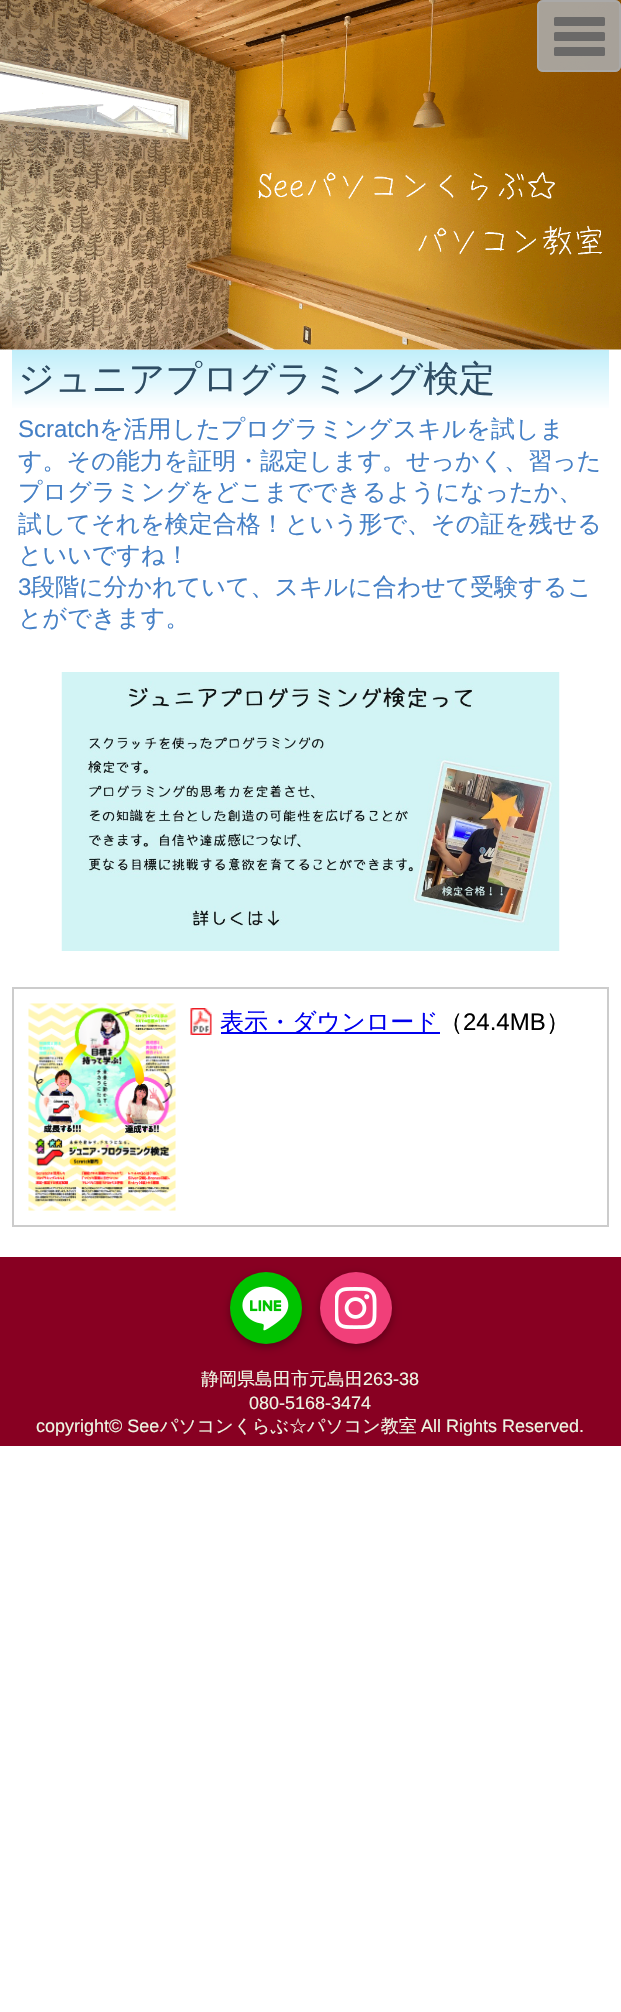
void draw(SkCanvas* canvas) {
    SkPaint paint;
    paint.setAntiAlias(true);
    auto face = [&](const char* family, int weight, float size, bool italic = false) {
        SkFontStyle style(weight, SkFontStyle::kNormal_Width,
            italic ? SkFontStyle::kItalic_Slant : SkFontStyle::kUpright_Slant);
        SkFont result(fontMgr->matchFamilyStyle(family, style), size);
        result.setSubpixel(true);
        return result;
    };
    auto write = [&](const char* s, float x, float y, const SkFont& font, SkColor color) {
        SkPaint ink(SkColor4f::FromColor(color));
        ink.setAntiAlias(true);
        canvas->drawString(s, x, y, font, ink);
    };
    auto block = [&](float x, float y, float w, float h, SkColor color) {
        SkPaint ink(SkColor4f::FromColor(color));
        ink.setAntiAlias(true);
        canvas->drawRect(SkRect::MakeXYWH(x, y, w, h), ink);
    };
    auto card = [&](float x, float y, float w, float h, float radius, SkColor color) {
        SkPaint ink(SkColor4f::FromColor(color));
        ink.setAntiAlias(true);
        canvas->drawRoundRect(SkRect::MakeXYWH(x, y, w, h), radius, radius, ink);
    };
    auto paste = [&](const char* path, float x, float y, float w, float h) {
        auto image = SkImages::DeferredFromEncodedData(SkData::MakeFromFileName(path));
        canvas->drawImageRect(image, SkRect::MakeXYWH(x, y, w, h), SkSamplingOptions());
    };
    canvas->clear(SK_ColorWHITE);
    paste("pic1.png", 0, 0, 621, 350);
    card(537, 0, 84, 72, 6, SkColorSetARGB(230, 170, 170, 170));
    paint.setStyle(SkPaint::kStroke_Style);
    paint.setStrokeWidth(2);
    paint.setColor(SkColorSetARGB(230, 170, 170, 170));
    canvas->drawRoundRect(SkRect::MakeXYWH(538, 1, 82, 70), 5, 5, paint);
    card(554, 17, 51, 9, 1.5f, SkColorSetRGB(106, 105, 104));
    card(554, 32, 51, 9, 1.5f, SkColorSetRGB(106, 105, 104));
    card(554, 47, 51, 9, 1.5f, SkColorSetRGB(106, 105, 104));
    paint.setStyle(SkPaint::kFill_Style);
    {
        const SkColor colors[] = {SkColorSetRGB(191, 238, 250), SK_ColorWHITE};
        const float stops[] = {0, 1};
        const SkPoint ends[] = {{311, 349}, {311, 410}};
        paint.setShader(SkGradientShader::MakeLinear(ends, colors, stops, 2, SkTileMode::kClamp));
        paint.setAlpha(255);
    }
    canvas->drawRect(SkRect::MakeXYWH(12, 350, 597, 58), paint);
    auto kFont1 = face("WenQuanYi Zen Hei", 500, 36);
    write("ジュニアプログラミング検定", 18, 391, kFont1, SkColorSetRGB(46, 77, 100));
    auto kFont2 = face("Liberation Sans", 400, 24);
    write("Scratch", 18, 437, kFont2, SkColorSetRGB(69, 128, 198));
    auto kFont3 = face("WenQuanYi Zen Hei", 500, 24);
    write("を活用したプログラミングスキルを試しま", 99, 437, kFont3, SkColorSetRGB(69, 128, 198));
    write("す。その能力を証明・認定します。せっかく、習った", 18, 469, kFont3, SkColorSetRGB(69, 128, 198));
    write("プログラミングをどこまでできるようになったか、", 18, 500, kFont3, SkColorSetRGB(69, 128, 198));
    write("試してそれを検定合格！という形で、その証を残せる", 18, 532, kFont3, SkColorSetRGB(69, 128, 198));
    write("といいですね！", 18, 563, kFont3, SkColorSetRGB(69, 128, 198));
    write("3", 18, 595, kFont2, SkColorSetRGB(69, 128, 198));
    write("段階に分かれていて、スキルに合わせて受験するこ", 31, 595, kFont3, SkColorSetRGB(69, 128, 198));
    write("とができます。", 18, 626, kFont3, SkColorSetRGB(69, 128, 198));
    paste("pic2.png", 61, 672, 499, 279);
    paint.setStyle(SkPaint::kStroke_Style);
    paint.setShader(nullptr);
    paint.setColor(SkColorSetRGB(204, 204, 204));
    canvas->drawRect(SkRect::MakeXYWH(13, 988, 595, 238), paint);
    paste("pic3.png", 28, 1003, 148, 208);
    paste("pic4.png", 190, 1008, 22, 27);
    block(221, 1032, 219, 2, SkColorSetRGB(0, 0, 238));
    write("表示・ダウンロード", 220, 1030, kFont3, SkColorSetRGB(0, 0, 238));
    write("（", 439, 1030, kFont3, SK_ColorBLACK);
    write("24.4MB", 463, 1030, kFont2, SK_ColorBLACK);
    write("）", 546, 1030, kFont3, SK_ColorBLACK);
    block(0, 1257, 621, 189, SkColorSetRGB(136, 0, 34));
    paint.setStyle(SkPaint::kFill_Style);
    paint.setColor(SkColorSetARGB(89, 0, 0, 0));
    paint.setMaskFilter(SkMaskFilter::MakeBlur(kNormal_SkBlurStyle, 4));
    canvas->drawRoundRect(SkRect::MakeXYWH(230, 1275, 72, 72), 36, 36, paint);
    paint.setMaskFilter(nullptr);
    paint.setColor(SkColorSetRGB(0, 195, 0));
    canvas->drawCircle(266, 1308, 36, paint);
    card(237, 1280, 57, 57, 15, SK_ColorWHITE);
    paste("pic5.png", 234, 1276, 63, 64);
    paint.setColor(SkColorSetARGB(89, 0, 0, 0));
    paint.setMaskFilter(SkMaskFilter::MakeBlur(kNormal_SkBlurStyle, 4));
    canvas->drawRoundRect(SkRect::MakeXYWH(320, 1275, 72, 72), 36, 36, paint);
    paint.setMaskFilter(nullptr);
    paint.setColor(SkColorSetRGB(241, 63, 121));
    canvas->drawCircle(356, 1308, 36, paint);
    paste("pic6.png", 335, 1287, 42, 42);
    auto kFont4 = face("WenQuanYi Zen Hei", 500, 18);
    write("静岡県島田市元島田", 201, 1385, kFont4, SkColorSetRGB(238, 247, 228));
    auto kFont5 = face("Liberation Sans", 400, 18);
    write("263-38", 363, 1385, kFont5, SkColorSetRGB(238, 247, 228));
    write("080-5168-3474", 249, 1409, kFont5, SkColorSetRGB(238, 247, 228));
    write("copyright© See", 36, 1432, kFont5, SkColorSetRGB(238, 247, 228));
    write("パソコンくらぶ☆パソコン教室", 160, 1432, kFont4, SkColorSetRGB(238, 247, 228));
    write("All Rights Reserved.", 421, 1432, kFont5, SkColorSetRGB(238, 247, 228));
}
